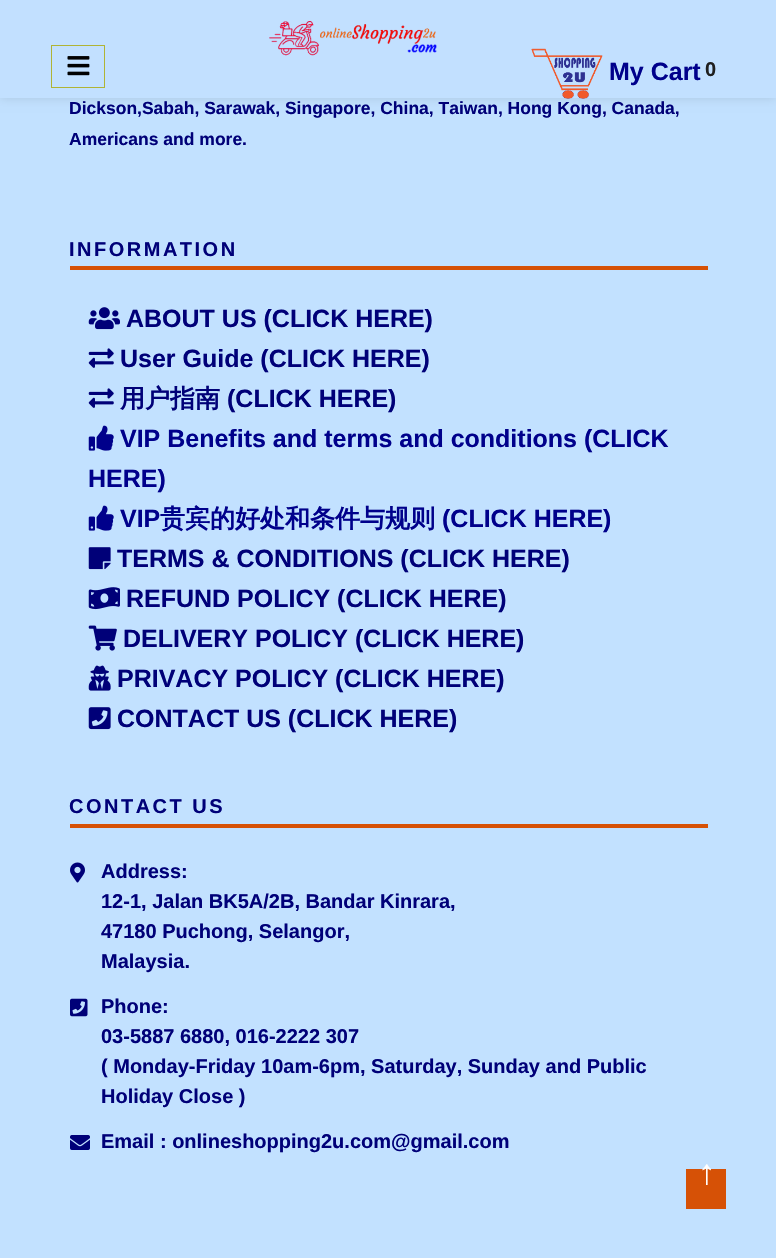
void draw(SkCanvas* canvas) {
    SkPaint paint;
    paint.setAntiAlias(true);
    auto face = [&](const char* family, int weight, float size, bool italic = false) {
        SkFontStyle style(weight, SkFontStyle::kNormal_Width,
            italic ? SkFontStyle::kItalic_Slant : SkFontStyle::kUpright_Slant);
        SkFont result(fontMgr->matchFamilyStyle(family, style), size);
        result.setSubpixel(true);
        return result;
    };
    auto write = [&](const char* s, float x, float y, const SkFont& font, SkColor color) {
        SkPaint ink(SkColor4f::FromColor(color));
        ink.setAntiAlias(true);
        canvas->drawString(s, x, y, font, ink);
    };
    auto writeSpaced = [&](const char* s, float x, float y, const SkFont& font, const SkPaint& ink, float letter, float word) {
        std::vector<SkGlyphID> glyphs(font.countText(s, strlen(s), SkTextEncoding::kUTF8));
        std::vector<float> xs(glyphs.size());
        font.textToGlyphs(s, strlen(s), SkTextEncoding::kUTF8, glyphs);
        font.getXPos(glyphs, xs, x);
        float extra = 0;
        for (size_t i = 0; i < glyphs.size(); i++) {
            xs[i] += extra;
            extra += letter + word * (glyphs[i] == font.unicharToGlyph(' '));
        }
        canvas->drawTextBlob(SkTextBlob::MakeFromPosHGlyphs(glyphs, xs, y, font), 0, 0, ink);
    };
    auto block = [&](float x, float y, float w, float h, SkColor color) {
        SkPaint ink(SkColor4f::FromColor(color));
        ink.setAntiAlias(true);
        canvas->drawRect(SkRect::MakeXYWH(x, y, w, h), ink);
    };
    auto paste = [&](const char* path, float x, float y, float w, float h) {
        auto image = SkImages::DeferredFromEncodedData(SkData::MakeFromFileName(path));
        canvas->drawImageRect(image, SkRect::MakeXYWH(x, y, w, h), SkSamplingOptions());
    };
    canvas->clear(SkColorSetRGB(194, 225, 255));
    paint.setColor(SkColorSetARGB(31, 0, 0, 0));
    paint.setMaskFilter(SkMaskFilter::MakeBlur(kNormal_SkBlurStyle, 5));
    canvas->drawRect(SkRect::MakeXYWH(0, 0, 776, 98), paint);
    paint.setMaskFilter(nullptr);
    block(0, 0, 776, 98, SkColorSetRGB(194, 224, 255));
    paste("pic1.png", 269, 21, 168, 35);
    paint.setStyle(SkPaint::kStroke_Style);
    paint.setStrokeWidth(1);
    paint.setColor(SkColorSetRGB(176, 180, 53));
    canvas->drawRect(SkRect::MakeXYWH(51.5f, 45.5f, 53, 42), paint);
    paste("pic2.png", 67, 56, 23, 20);
    paste("pic3.png", 531, 48, 72, 51);
    auto kFont1 = face("Liberation Sans", 700, 25);
    write("My Cart", 609, 80, kFont1, SkColorSetRGB(0, 0, 139));
    auto kFont2 = face("Liberation Sans", 700, 20);
    write("0", 705, 76, kFont2, SkColorSetRGB(31, 31, 31));
    auto kFont3 = face("Liberation Sans", 700, 17.5f);
    write("Dickson,Sabah, Sarawak, Singapore, China, Taiwan, Hong Kong, Canada,", 69, 114, kFont3, SkColorSetRGB(0, 0, 120));
    write("Americans and more.", 69, 145, kFont3, SkColorSetRGB(0, 0, 120));
    paint.setStyle(SkPaint::kFill_Style);
    paint.setColor(SkColorSetRGB(0, 0, 120));
    writeSpaced("INFORMATION", 69, 256, kFont2, paint, 2.5f, 0);
    block(70, 266, 638, 4, SkColorSetRGB(214, 81, 6));
    paste("pic4.png", 88, 307, 32, 23);
    write("ABOUT US (CLICK HERE)", 126, 327, kFont1, SkColorSetRGB(0, 0, 120));
    paste("pic5.png", 88, 348, 26, 20);
    write("User Guide (CLICK HERE)", 120, 367, kFont1, SkColorSetRGB(0, 0, 120));
    paste("pic5.png", 88, 388, 26, 20);
    auto kFont4 = face("WenQuanYi Zen Hei", 700, 25);
    write("用户指南", 120, 407, kFont4, SkColorSetRGB(0, 0, 120));
    write("(CLICK HERE)", 227, 407, kFont1, SkColorSetRGB(0, 0, 120));
    paste("pic6.png", 88, 425, 26, 26);
    write("VIP Benefits and terms and conditions (CLICK", 120, 447, kFont1, SkColorSetRGB(0, 0, 139));
    write("HERE)", 88, 487, kFont1, SkColorSetRGB(0, 0, 139));
    paste("pic6.png", 88, 505, 26, 26);
    write("VIP", 120, 527, kFont1, SkColorSetRGB(0, 0, 139));
    write("贵宾的好处和条件与规则", 160, 527, kFont4, SkColorSetRGB(0, 0, 139));
    write("(CLICK HERE)", 442, 527, kFont1, SkColorSetRGB(0, 0, 139));
    paste("pic7.png", 88, 547, 23, 23);
    write("TERMS & CONDITIONS (CLICK HERE)", 117, 567, kFont1, SkColorSetRGB(0, 0, 120));
    paste("pic8.png", 88, 587, 32, 23);
    write("REFUND POLICY (CLICK HERE)", 126, 607, kFont1, SkColorSetRGB(0, 0, 120));
    paste("pic9.png", 88, 625, 29, 26);
    write("DELIVERY POLICY (CLICK HERE)", 123, 647, kFont1, SkColorSetRGB(0, 0, 120));
    paste("pic10.png", 88, 665, 23, 26);
    write("PRIVACY POLICY (CLICK HERE)", 117, 687, kFont1, SkColorSetRGB(0, 0, 120));
    paste("pic11.png", 88, 707, 23, 23);
    write("CONTACT US (CLICK HERE)", 117, 727, kFont1, SkColorSetRGB(0, 0, 120));
    writeSpaced("CONTACT US", 69, 813, kFont2, paint, 2.5f, 0);
    block(70, 824, 638, 4, SkColorSetRGB(214, 81, 6));
    paste("pic12.png", 70, 862, 15, 21);
    write("Address:", 101, 878, kFont2, SkColorSetRGB(0, 0, 120));
    write("12-1, Jalan BK5A/2B, Bandar Kinrara,", 101, 908, kFont2, SkColorSetRGB(0, 0, 120));
    write("47180 Puchong, Selangor,", 101, 938, kFont2, SkColorSetRGB(0, 0, 120));
    write("Malaysia.", 101, 968, kFont2, SkColorSetRGB(0, 0, 120));
    paste("pic13.png", 70, 998, 18, 19);
    write("Phone:", 101, 1013, kFont2, SkColorSetRGB(0, 0, 120));
    write("03-5887 6880, 016-2222 307", 101, 1043, kFont2, SkColorSetRGB(0, 0, 120));
    write("( Monday-Friday 10am-6pm, Saturday, Sunday and Public", 101, 1073, kFont2, SkColorSetRGB(0, 0, 120));
    write("Holiday Close )", 101, 1103, kFont2, SkColorSetRGB(0, 0, 120));
    paste("pic14.png", 70, 1135, 20, 15);
    write("Email : onlineshopping2u.com@gmail.com", 101, 1148, kFont2, SkColorSetRGB(0, 0, 120));
    block(686, 1169, 40, 40, SkColorSetRGB(214, 81, 6));
    auto kFont5 = face("Liberation Sans", 700, 35);
    write("↑", 698, 1184, kFont5, SK_ColorWHITE);
}
